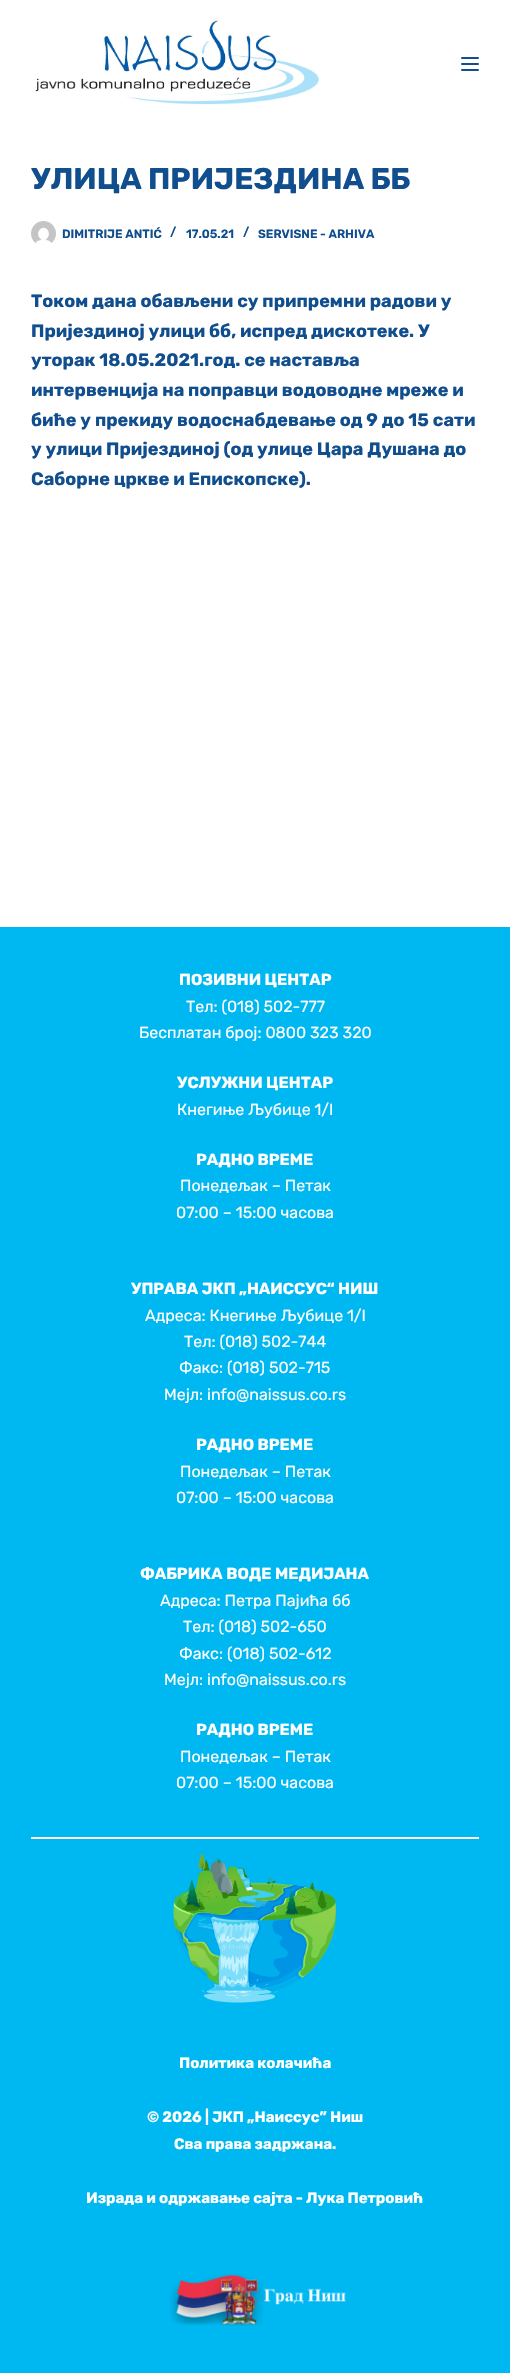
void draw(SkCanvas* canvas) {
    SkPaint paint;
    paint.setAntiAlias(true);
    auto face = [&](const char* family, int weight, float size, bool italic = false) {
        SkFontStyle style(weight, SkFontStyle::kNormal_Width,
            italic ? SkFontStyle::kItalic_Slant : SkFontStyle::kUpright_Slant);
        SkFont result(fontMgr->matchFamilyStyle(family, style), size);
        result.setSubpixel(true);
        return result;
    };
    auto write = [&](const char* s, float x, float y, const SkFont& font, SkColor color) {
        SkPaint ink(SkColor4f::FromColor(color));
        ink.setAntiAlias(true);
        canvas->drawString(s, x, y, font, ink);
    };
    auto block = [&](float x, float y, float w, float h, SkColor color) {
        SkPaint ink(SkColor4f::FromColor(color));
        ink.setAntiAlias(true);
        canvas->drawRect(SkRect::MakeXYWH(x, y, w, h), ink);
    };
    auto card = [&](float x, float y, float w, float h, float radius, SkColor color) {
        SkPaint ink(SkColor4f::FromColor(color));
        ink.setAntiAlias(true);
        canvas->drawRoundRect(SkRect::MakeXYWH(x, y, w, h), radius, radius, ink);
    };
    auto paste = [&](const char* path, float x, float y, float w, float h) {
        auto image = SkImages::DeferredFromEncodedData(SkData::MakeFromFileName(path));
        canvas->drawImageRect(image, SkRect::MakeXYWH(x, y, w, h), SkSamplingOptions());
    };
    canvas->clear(SK_ColorWHITE);
    paste("pic1.png", 35, 20, 284, 85);
    card(461, 57, 18, 2, 1, SkColorSetRGB(16, 78, 141));
    card(461, 63, 18, 2, 1, SkColorSetRGB(16, 78, 141));
    card(461, 69, 18, 2, 1, SkColorSetRGB(16, 78, 141));
    auto kFont1 = face("Rubik", 700, 30);
    write("УЛИЦА ПРИЈЕЗДИНА ББ", 31, 189, kFont1, SkColorSetRGB(16, 78, 141));
    paste("pic2.png", 31, 221, 25, 22);
    auto kFont2 = face("Rubik", 600, 12);
    write("DIMITRIJE ANTIĆ", 62, 238, kFont2, SkColorSetRGB(16, 78, 141));
    write("/", 170, 236, kFont2, SkColorSetRGB(16, 78, 141));
    write("17.05.21", 186, 238, kFont2, SkColorSetRGB(16, 78, 141));
    write("/", 243, 236, kFont2, SkColorSetRGB(16, 78, 141));
    write("SERVISNE - ARHIVA", 258, 238, kFont2, SkColorSetRGB(16, 78, 141));
    auto kFont3 = face("Rubik", 700, 18);
    write("Током дана обављени су припремни радови у", 31, 307, kFont3, SkColorSetRGB(16, 78, 141));
    write("Пријездиној улици бб, испред дискотеке. У", 31, 337, kFont3, SkColorSetRGB(16, 78, 141));
    write("уторак 18.05.2021.год. се наставља", 31, 366, kFont3, SkColorSetRGB(16, 78, 141));
    write("интервенција на поправци водоводне мреже и", 31, 396, kFont3, SkColorSetRGB(16, 78, 141));
    write("биће у прекиду водоснабдевање од 9 до 15 сати", 31, 426, kFont3, SkColorSetRGB(16, 78, 141));
    write("у улици Пријездиној (од улице Цара Душана до", 31, 455, kFont3, SkColorSetRGB(16, 78, 141));
    write("Саборне цркве и Епископске).", 31, 485, kFont3, SkColorSetRGB(16, 78, 141));
    block(0, 927, 510, 1446, SkColorSetRGB(0, 184, 241));
    block(31, 1837, 448, 2, SK_ColorWHITE);
    auto kFont4 = face("Rubik", 700, 16);
    write("ПОЗИВНИ ЦЕНТАР", 179, 985, kFont4, SK_ColorWHITE);
    auto kFont5 = face("Rubik", 400, 16);
    write("Тел: (018) 502-777", 186, 1012, kFont5, SK_ColorWHITE);
    write("Бесплатан број: 0800 323 320", 139, 1038, kFont5, SK_ColorWHITE);
    write("УСЛУЖНИ ЦЕНТАР", 177, 1088, kFont4, SK_ColorWHITE);
    write("Кнегиње Љубице 1/I", 177, 1115, kFont5, SK_ColorWHITE);
    write("РАДНО ВРЕМЕ", 196, 1165, kFont4, SK_ColorWHITE);
    write("Понедељак – Петак", 180, 1191, kFont5, SK_ColorWHITE);
    write("07:00 – 15:00 часова", 176, 1218, kFont5, SK_ColorWHITE);
    write("УПРАВА ЈКП „НАИССУС“ НИШ", 131, 1294, kFont4, SK_ColorWHITE);
    write("Адреса: Кнегиње Љубице 1/I", 145, 1321, kFont5, SK_ColorWHITE);
    write("Тел: (018) 502-744", 184, 1347, kFont5, SK_ColorWHITE);
    write("Факс: (018) 502-715", 179, 1373, kFont5, SK_ColorWHITE);
    write("Мејл: info@naissus.co.rs", 164, 1400, kFont5, SK_ColorWHITE);
    write("РАДНО ВРЕМЕ", 196, 1450, kFont4, SK_ColorWHITE);
    write("Понедељак – Петак", 180, 1477, kFont5, SK_ColorWHITE);
    write("07:00 – 15:00 часова", 176, 1503, kFont5, SK_ColorWHITE);
    write("ФАБРИКА ВОДЕ МЕДИЈАНА", 140, 1579, kFont4, SK_ColorWHITE);
    write("Адреса: Петра Пајића бб", 160, 1606, kFont5, SK_ColorWHITE);
    write("Тел: (018) 502-650", 183, 1632, kFont5, SK_ColorWHITE);
    write("Факс: (018) 502-612", 179, 1659, kFont5, SK_ColorWHITE);
    write("Мејл: info@naissus.co.rs", 164, 1685, kFont5, SK_ColorWHITE);
    write("РАДНО ВРЕМЕ", 196, 1735, kFont4, SK_ColorWHITE);
    write("Понедељак – Петак", 180, 1762, kFont5, SK_ColorWHITE);
    write("07:00 – 15:00 часова", 176, 1788, kFont5, SK_ColorWHITE);
    paste("pic3.png", 173, 1854, 163, 149);
    auto kFont6 = face("Rubik", 700, 15);
    write("Политика колачића", 179, 2068, kFont6, SK_ColorWHITE);
    write("© 2026 | ЈКП „Наиссус” Ниш", 147, 2122, kFont6, SK_ColorWHITE);
    write("Сва права задржана.", 174, 2149, kFont6, SK_ColorWHITE);
    write("Израда и одржавање сајта - Лука Петровић", 86, 2203, kFont6, SK_ColorWHITE);
    paste("pic4.png", 170, 2273, 176, 53);
}
